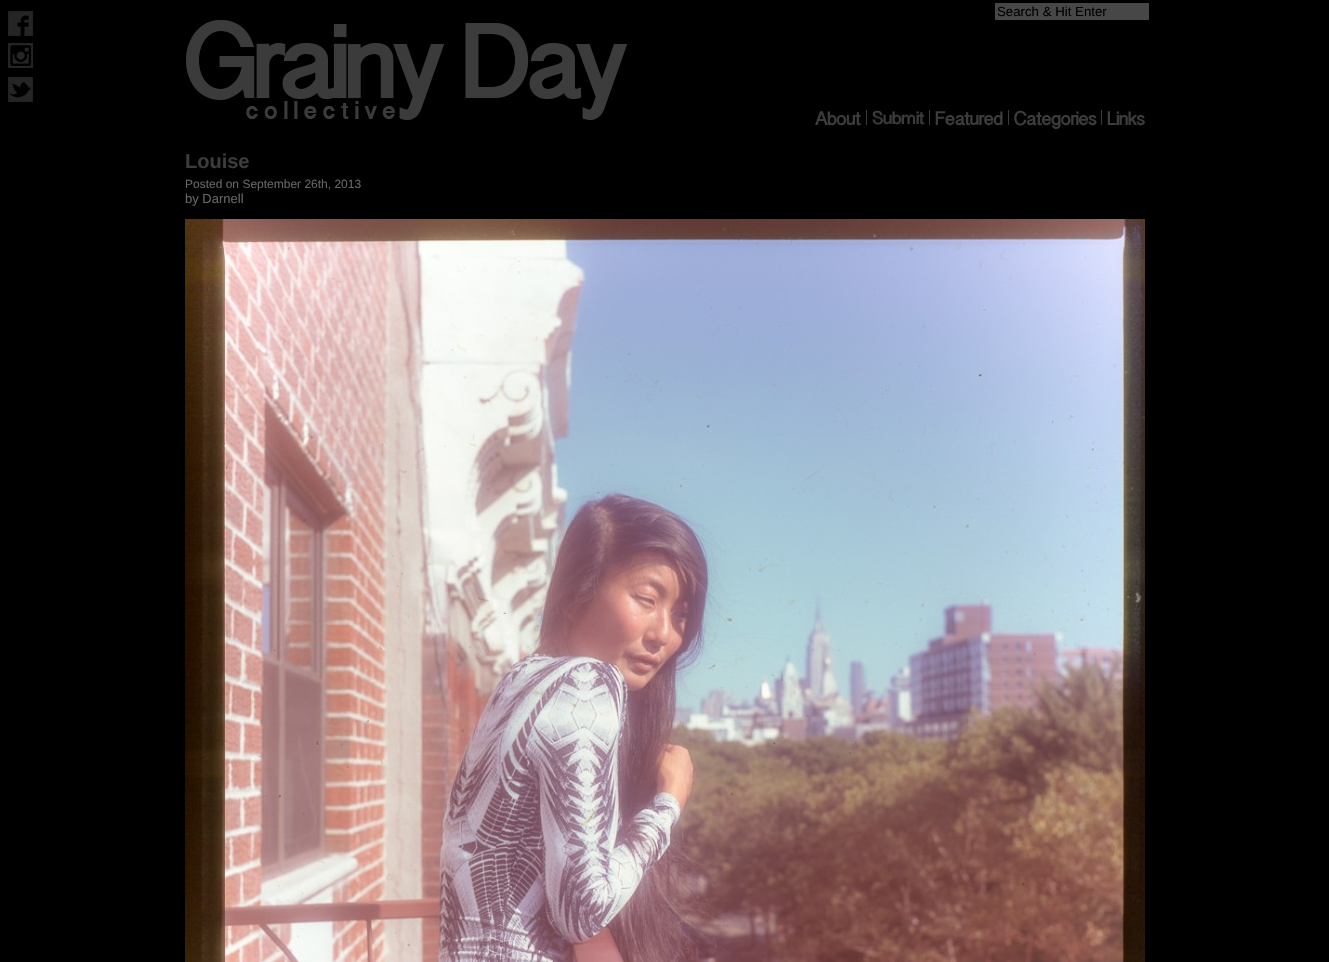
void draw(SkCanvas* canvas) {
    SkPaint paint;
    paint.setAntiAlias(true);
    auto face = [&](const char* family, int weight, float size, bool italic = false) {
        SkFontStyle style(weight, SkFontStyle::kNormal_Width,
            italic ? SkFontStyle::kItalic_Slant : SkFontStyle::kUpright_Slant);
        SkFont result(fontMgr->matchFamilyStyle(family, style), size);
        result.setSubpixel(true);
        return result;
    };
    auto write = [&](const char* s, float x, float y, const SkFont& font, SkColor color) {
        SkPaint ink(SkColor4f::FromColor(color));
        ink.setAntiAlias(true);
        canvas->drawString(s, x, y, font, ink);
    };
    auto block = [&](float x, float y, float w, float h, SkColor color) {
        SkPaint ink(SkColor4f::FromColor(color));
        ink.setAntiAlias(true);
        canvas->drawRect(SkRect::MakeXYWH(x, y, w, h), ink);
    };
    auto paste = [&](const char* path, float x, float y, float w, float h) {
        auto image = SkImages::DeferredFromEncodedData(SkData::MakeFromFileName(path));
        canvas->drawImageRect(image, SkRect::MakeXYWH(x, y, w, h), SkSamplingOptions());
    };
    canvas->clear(SK_ColorBLACK);
    paste("pic1.png", 8, 11, 25, 25);
    paste("pic2.png", 8, 43, 25, 25);
    paste("pic3.png", 8, 77, 25, 25);
    block(995, 3, 154, 17, SkColorSetRGB(71, 71, 71));
    auto kFont1 = face("Liberation Sans", 400, 13.25f);
    write("Search & Hit Enter", 997, 16, kFont1, SK_ColorBLACK);
    paste("pic4.png", 186, 20, 441, 100);
    paste("pic5.png", 815, 111, 46, 15);
    block(866, 110, 1, 15, SkColorSetRGB(60, 60, 60));
    paste("pic6.png", 872, 110, 53, 15);
    block(929, 110, 1, 15, SkColorSetRGB(60, 60, 60));
    paste("pic7.png", 935, 111, 68, 15);
    block(1008, 110, 1, 15, SkColorSetRGB(60, 60, 60));
    paste("pic8.png", 1014, 110, 83, 19);
    block(1101, 110, 1, 15, SkColorSetRGB(60, 60, 60));
    paste("pic9.png", 1107, 111, 38, 15);
    auto kFont2 = face("Liberation Sans", 700, 20);
    write("Louise", 185, 168, kFont2, SkColorSetRGB(60, 60, 60));
    auto kFont3 = face("Liberation Sans", 400, 12);
    write("Posted on September 26th, 2013", 185, 188, kFont3, SkColorSetRGB(102, 102, 102));
    auto kFont4 = face("Liberation Sans", 400, 13);
    write("by Darnell", 185, 203, kFont4, SkColorSetRGB(102, 102, 102));
    paste("pic10.png", 185, 219, 960, 743);
}
